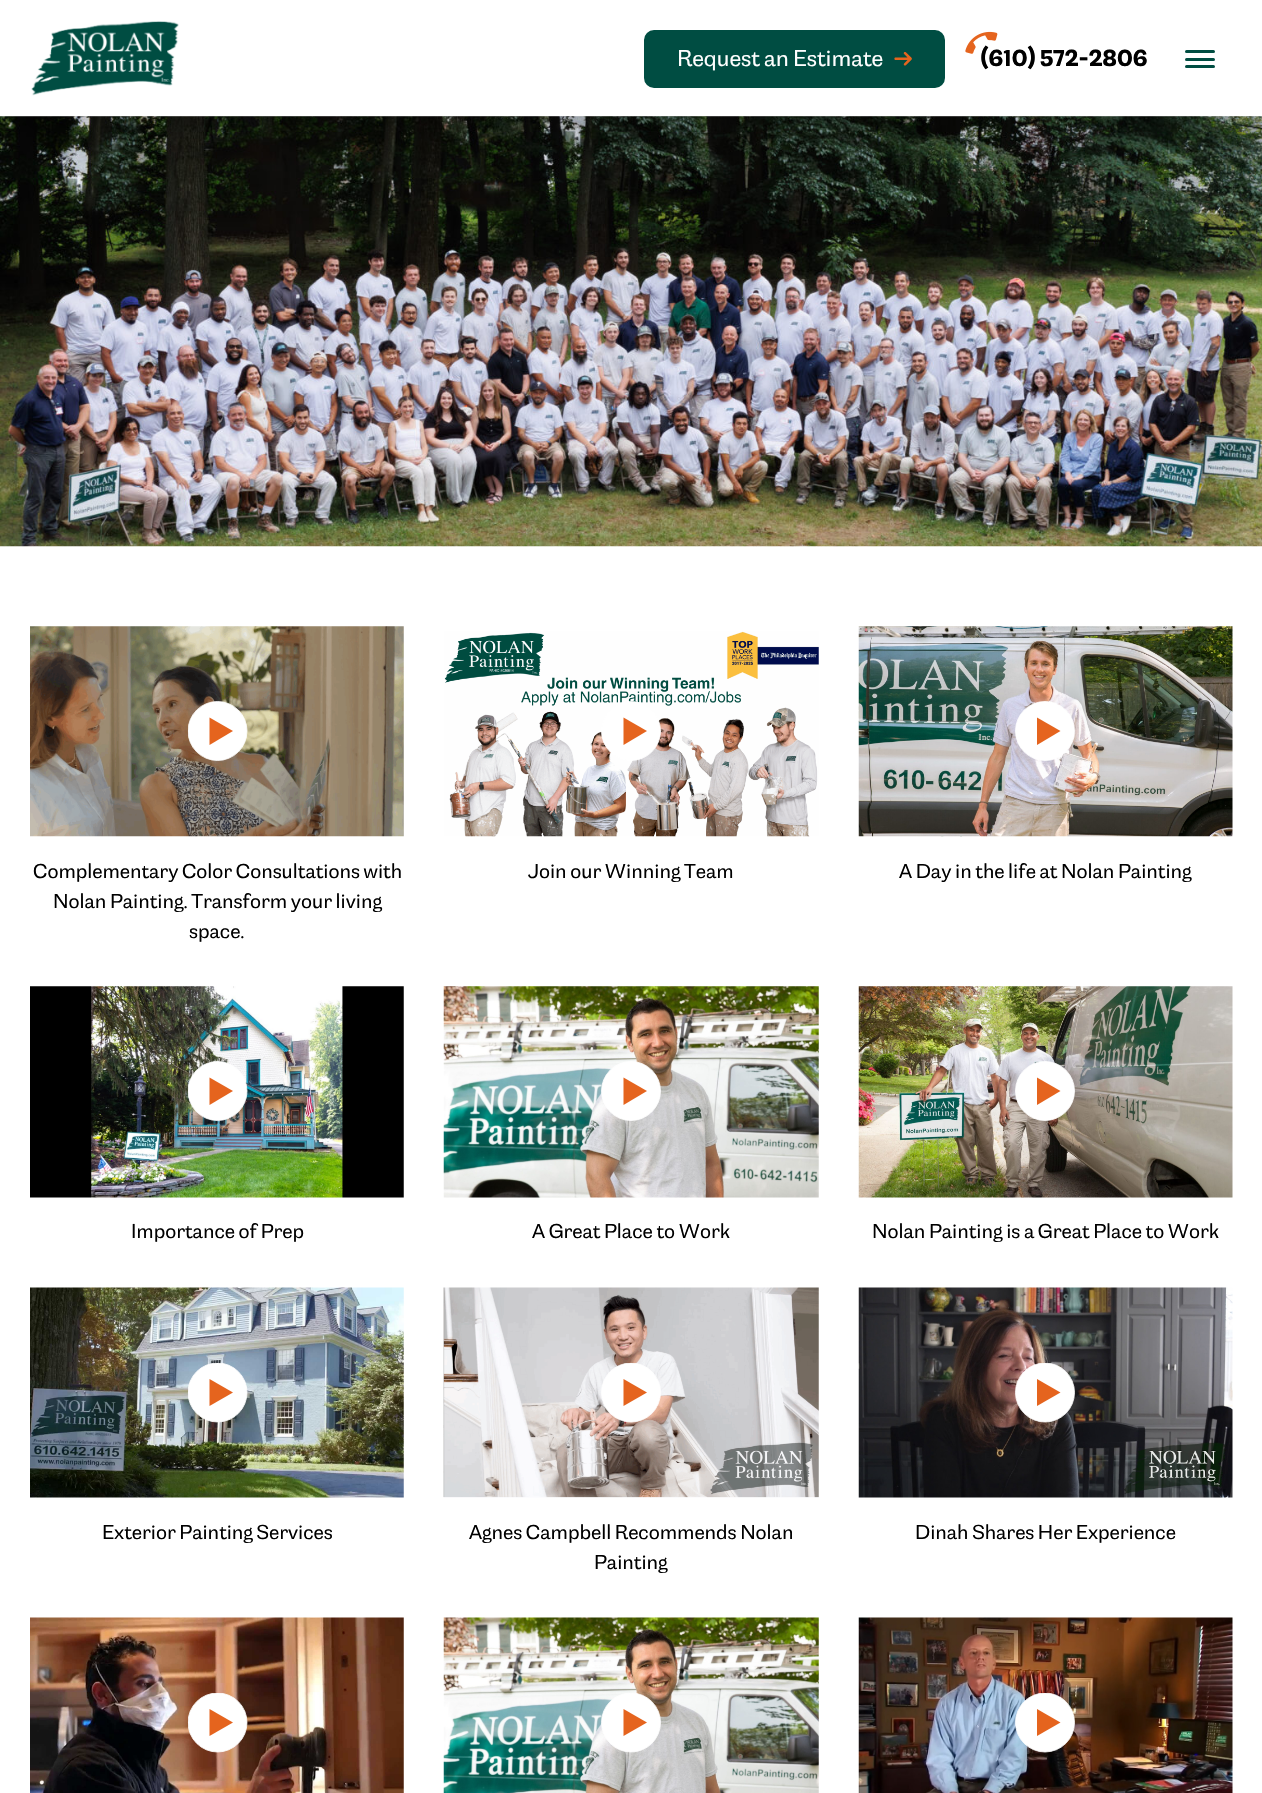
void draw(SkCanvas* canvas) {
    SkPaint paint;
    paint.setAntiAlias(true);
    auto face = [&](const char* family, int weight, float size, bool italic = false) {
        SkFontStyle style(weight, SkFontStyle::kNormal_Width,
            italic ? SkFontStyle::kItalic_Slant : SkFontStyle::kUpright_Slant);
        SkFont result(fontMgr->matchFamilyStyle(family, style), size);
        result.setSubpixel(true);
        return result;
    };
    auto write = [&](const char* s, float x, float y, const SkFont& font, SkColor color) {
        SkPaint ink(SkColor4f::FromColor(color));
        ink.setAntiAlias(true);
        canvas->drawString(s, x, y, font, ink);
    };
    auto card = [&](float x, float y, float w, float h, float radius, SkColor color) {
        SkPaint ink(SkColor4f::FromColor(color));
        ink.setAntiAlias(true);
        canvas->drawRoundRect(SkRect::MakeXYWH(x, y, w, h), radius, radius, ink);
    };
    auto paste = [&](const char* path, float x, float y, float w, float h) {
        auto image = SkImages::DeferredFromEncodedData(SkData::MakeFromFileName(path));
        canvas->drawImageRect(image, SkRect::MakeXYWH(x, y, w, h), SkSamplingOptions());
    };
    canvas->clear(SK_ColorWHITE);
    paste("pic4.png", 0, 116, 1262, 431);
    canvas->save();
    canvas->clipRect(SkRect::MakeXYWH(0, 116, 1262, 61));
    paint.setColor(SkColorSetARGB(64, 0, 0, 0));
    paint.setMaskFilter(SkMaskFilter::MakeBlur(kNormal_SkBlurStyle, 31));
    canvas->drawRect(SkRect::MakeXYWH(15, 46, 1233, 87), paint);
    paint.setMaskFilter(nullptr);
    canvas->restore();
    paste("pic1.png", 31, 21, 148, 75);
    paint.setColor(SkColorSetRGB(0, 77, 66));
    canvas->drawRoundRect(SkRect::MakeXYWH(645.5f, 31.5f, 298, 55), 8.5f, 8.5f, paint);
    paint.setStyle(SkPaint::kStroke_Style);
    paint.setStrokeWidth(3);
    canvas->drawRoundRect(SkRect::MakeXYWH(645.5f, 31.5f, 298, 55), 8.5f, 8.5f, paint);
    auto kFont1 = face("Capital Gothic", 400, 22.75f);
    write("Request an Estimate", 677, 66, kFont1, SK_ColorWHITE);
    paste("pic2.png", 894, 52, 18, 14);
    auto kFont2 = face("Capital Gothic", 700, 22.75f);
    write("(610) 572-2806", 980, 66, kFont2, SK_ColorBLACK);
    paste("pic3.png", 965, 31, 33, 23);
    card(1185, 50, 30, 3, 1.5f, SkColorSetRGB(0, 77, 66));
    card(1185, 58, 30, 3, 1.5f, SkColorSetRGB(0, 77, 66));
    card(1185, 65, 30, 3, 1.5f, SkColorSetRGB(0, 77, 66));
    paste("pic5.png", 30, 626, 374, 211);
    paint.setStyle(SkPaint::kFill_Style);
    paint.setColor(SK_ColorWHITE);
    canvas->drawCircle(217.5f, 731, 29.5f, paint);
    canvas->save();
    canvas->clipRect(SkRect::MakeXYWH(188, 701, 60, 60));
    paint.setStyle(SkPaint::kStroke_Style);
    paint.setStrokeWidth(0.8f);
    canvas->drawCircle(217.5f, 731, 29.5f, paint);
    canvas->restore();
    paint.setStyle(SkPaint::kFill_Style);
    paint.setColor(SkColorSetRGB(229, 100, 30));
    canvas->drawPath(SkPathBuilder().moveTo(233, 731).lineTo(209.5f, 745).lineTo(209.5f, 717.5f).close().detach(), paint);
    auto kFont3 = face("Capital Gothic", 400, 20);
    write("Complementary Color Consultations with", 33, 878, kFont3, SK_ColorBLACK);
    write("Nolan Painting. Transform your living", 53, 908, kFont3, SK_ColorBLACK);
    write("space.", 189, 938, kFont3, SK_ColorBLACK);
    paste("pic6.png", 444, 631, 375, 206);
    paint.setColor(SK_ColorWHITE);
    canvas->drawCircle(631, 731, 29.5f, paint);
    paint.setStyle(SkPaint::kStroke_Style);
    canvas->drawCircle(631, 731, 29.5f, paint);
    paint.setStyle(SkPaint::kFill_Style);
    paint.setColor(SkColorSetRGB(229, 100, 30));
    canvas->drawPath(SkPathBuilder().moveTo(647, 731).lineTo(623.5f, 745).lineTo(623.5f, 717.5f).close().detach(), paint);
    write("Join our Winning Team", 528, 878, kFont3, SK_ColorBLACK);
    paste("pic7.png", 858, 626, 375, 211);
    paint.setColor(SK_ColorWHITE);
    canvas->drawCircle(1045, 731, 29.5f, paint);
    paint.setStyle(SkPaint::kStroke_Style);
    canvas->drawCircle(1045, 731, 29.5f, paint);
    paint.setStyle(SkPaint::kFill_Style);
    paint.setColor(SkColorSetRGB(229, 100, 30));
    canvas->drawPath(SkPathBuilder().moveTo(1060.5f, 731).lineTo(1037, 745).lineTo(1037, 717.5f).close().detach(), paint);
    write("A Day in the life at Nolan Painting", 899, 878, kFont3, SK_ColorBLACK);
    paste("pic8.png", 30, 986, 374, 212);
    paint.setColor(SK_ColorWHITE);
    canvas->drawCircle(217.5f, 1091, 29.5f, paint);
    canvas->save();
    canvas->clipRect(SkRect::MakeXYWH(188, 1061, 60, 60));
    paint.setStyle(SkPaint::kStroke_Style);
    canvas->drawCircle(217.5f, 1091, 29.5f, paint);
    canvas->restore();
    paint.setStyle(SkPaint::kFill_Style);
    paint.setColor(SkColorSetRGB(229, 100, 30));
    canvas->drawPath(SkPathBuilder().moveTo(233, 1091).lineTo(209.5f, 1105).lineTo(209.5f, 1077.5f).close().detach(), paint);
    write("Importance of Prep", 131, 1238, kFont3, SK_ColorBLACK);
    paste("pic9.png", 443, 986, 376, 212);
    paint.setColor(SK_ColorWHITE);
    canvas->drawCircle(631, 1091, 29.5f, paint);
    paint.setStyle(SkPaint::kStroke_Style);
    canvas->drawCircle(631, 1091, 29.5f, paint);
    paint.setStyle(SkPaint::kFill_Style);
    paint.setColor(SkColorSetRGB(229, 100, 30));
    canvas->drawPath(SkPathBuilder().moveTo(647, 1091).lineTo(623.5f, 1105).lineTo(623.5f, 1077.5f).close().detach(), paint);
    write("A Great Place to Work", 532, 1238, kFont3, SK_ColorBLACK);
    paste("pic10.png", 858, 986, 375, 212);
    paint.setColor(SK_ColorWHITE);
    canvas->drawCircle(1045, 1091, 29.5f, paint);
    paint.setStyle(SkPaint::kStroke_Style);
    canvas->drawCircle(1045, 1091, 29.5f, paint);
    paint.setStyle(SkPaint::kFill_Style);
    paint.setColor(SkColorSetRGB(229, 100, 30));
    canvas->drawPath(SkPathBuilder().moveTo(1060.5f, 1091).lineTo(1037, 1105).lineTo(1037, 1077.5f).close().detach(), paint);
    write("Nolan Painting is a Great Place to Work", 872, 1238, kFont3, SK_ColorBLACK);
    paste("pic11.png", 30, 1287, 374, 211);
    paint.setColor(SK_ColorWHITE);
    canvas->drawCircle(217.5f, 1392.5f, 29.5f, paint);
    canvas->save();
    canvas->clipRect(SkRect::MakeXYWH(188, 1363, 60, 60));
    paint.setStyle(SkPaint::kStroke_Style);
    canvas->drawCircle(217.5f, 1392.5f, 29.5f, paint);
    canvas->restore();
    paint.setStyle(SkPaint::kFill_Style);
    paint.setColor(SkColorSetRGB(229, 100, 30));
    canvas->drawPath(SkPathBuilder().moveTo(233, 1392.5f).lineTo(209.5f, 1406).lineTo(209.5f, 1379).close().detach(), paint);
    write("Exterior Painting Services", 102, 1539, kFont3, SK_ColorBLACK);
    paste("pic12.png", 443, 1287, 376, 211);
    paint.setColor(SK_ColorWHITE);
    canvas->drawCircle(631, 1392.5f, 29.5f, paint);
    canvas->save();
    canvas->clipRect(SkRect::MakeXYWH(601, 1363, 60, 60));
    paint.setStyle(SkPaint::kStroke_Style);
    canvas->drawCircle(631, 1392.5f, 29.5f, paint);
    canvas->restore();
    paint.setStyle(SkPaint::kFill_Style);
    paint.setColor(SkColorSetRGB(229, 100, 30));
    canvas->drawPath(SkPathBuilder().moveTo(647, 1392.5f).lineTo(623.5f, 1406).lineTo(623.5f, 1379).close().detach(), paint);
    write("Agnes Campbell Recommends Nolan", 469, 1539, kFont3, SK_ColorBLACK);
    write("Painting", 594, 1569, kFont3, SK_ColorBLACK);
    paste("pic13.png", 858, 1287, 375, 211);
    paint.setColor(SK_ColorWHITE);
    canvas->drawCircle(1045, 1392.5f, 29.5f, paint);
    canvas->save();
    canvas->clipRect(SkRect::MakeXYWH(1015, 1363, 60, 60));
    paint.setStyle(SkPaint::kStroke_Style);
    canvas->drawCircle(1045, 1392.5f, 29.5f, paint);
    canvas->restore();
    paint.setStyle(SkPaint::kFill_Style);
    paint.setColor(SkColorSetRGB(229, 100, 30));
    canvas->drawPath(SkPathBuilder().moveTo(1060.5f, 1392.5f).lineTo(1037, 1406).lineTo(1037, 1379).close().detach(), paint);
    write("Dinah Shares Her Experience", 915, 1539, kFont3, SK_ColorBLACK);
    paste("pic14.png", 30, 1617, 374, 176);
    paint.setColor(SK_ColorWHITE);
    canvas->drawCircle(217.5f, 1722.5f, 29.5f, paint);
    canvas->save();
    canvas->clipRect(SkRect::MakeXYWH(188, 1693, 60, 60));
    paint.setStyle(SkPaint::kStroke_Style);
    canvas->drawCircle(217.5f, 1722.5f, 29.5f, paint);
    canvas->restore();
    paint.setStyle(SkPaint::kFill_Style);
    paint.setColor(SkColorSetRGB(229, 100, 30));
    canvas->drawPath(SkPathBuilder().moveTo(233, 1722.5f).lineTo(209.5f, 1736).lineTo(209.5f, 1709).close().detach(), paint);
    paste("pic15.png", 443, 1617, 376, 176);
    paint.setColor(SK_ColorWHITE);
    canvas->drawCircle(631, 1722.5f, 29.5f, paint);
    canvas->save();
    canvas->clipRect(SkRect::MakeXYWH(601, 1693, 60, 60));
    paint.setStyle(SkPaint::kStroke_Style);
    canvas->drawCircle(631, 1722.5f, 29.5f, paint);
    canvas->restore();
    paint.setStyle(SkPaint::kFill_Style);
    paint.setColor(SkColorSetRGB(229, 100, 30));
    canvas->drawPath(SkPathBuilder().moveTo(647, 1722.5f).lineTo(623.5f, 1736).lineTo(623.5f, 1709).close().detach(), paint);
    paste("pic16.png", 858, 1617, 375, 176);
    paint.setColor(SK_ColorWHITE);
    canvas->drawCircle(1045, 1722.5f, 29.5f, paint);
    canvas->save();
    canvas->clipRect(SkRect::MakeXYWH(1015, 1693, 60, 60));
    paint.setStyle(SkPaint::kStroke_Style);
    canvas->drawCircle(1045, 1722.5f, 29.5f, paint);
    canvas->restore();
    paint.setStyle(SkPaint::kFill_Style);
    paint.setColor(SkColorSetRGB(229, 100, 30));
    canvas->drawPath(SkPathBuilder().moveTo(1060.5f, 1722.5f).lineTo(1037, 1736).lineTo(1037, 1709).close().detach(), paint);
}
